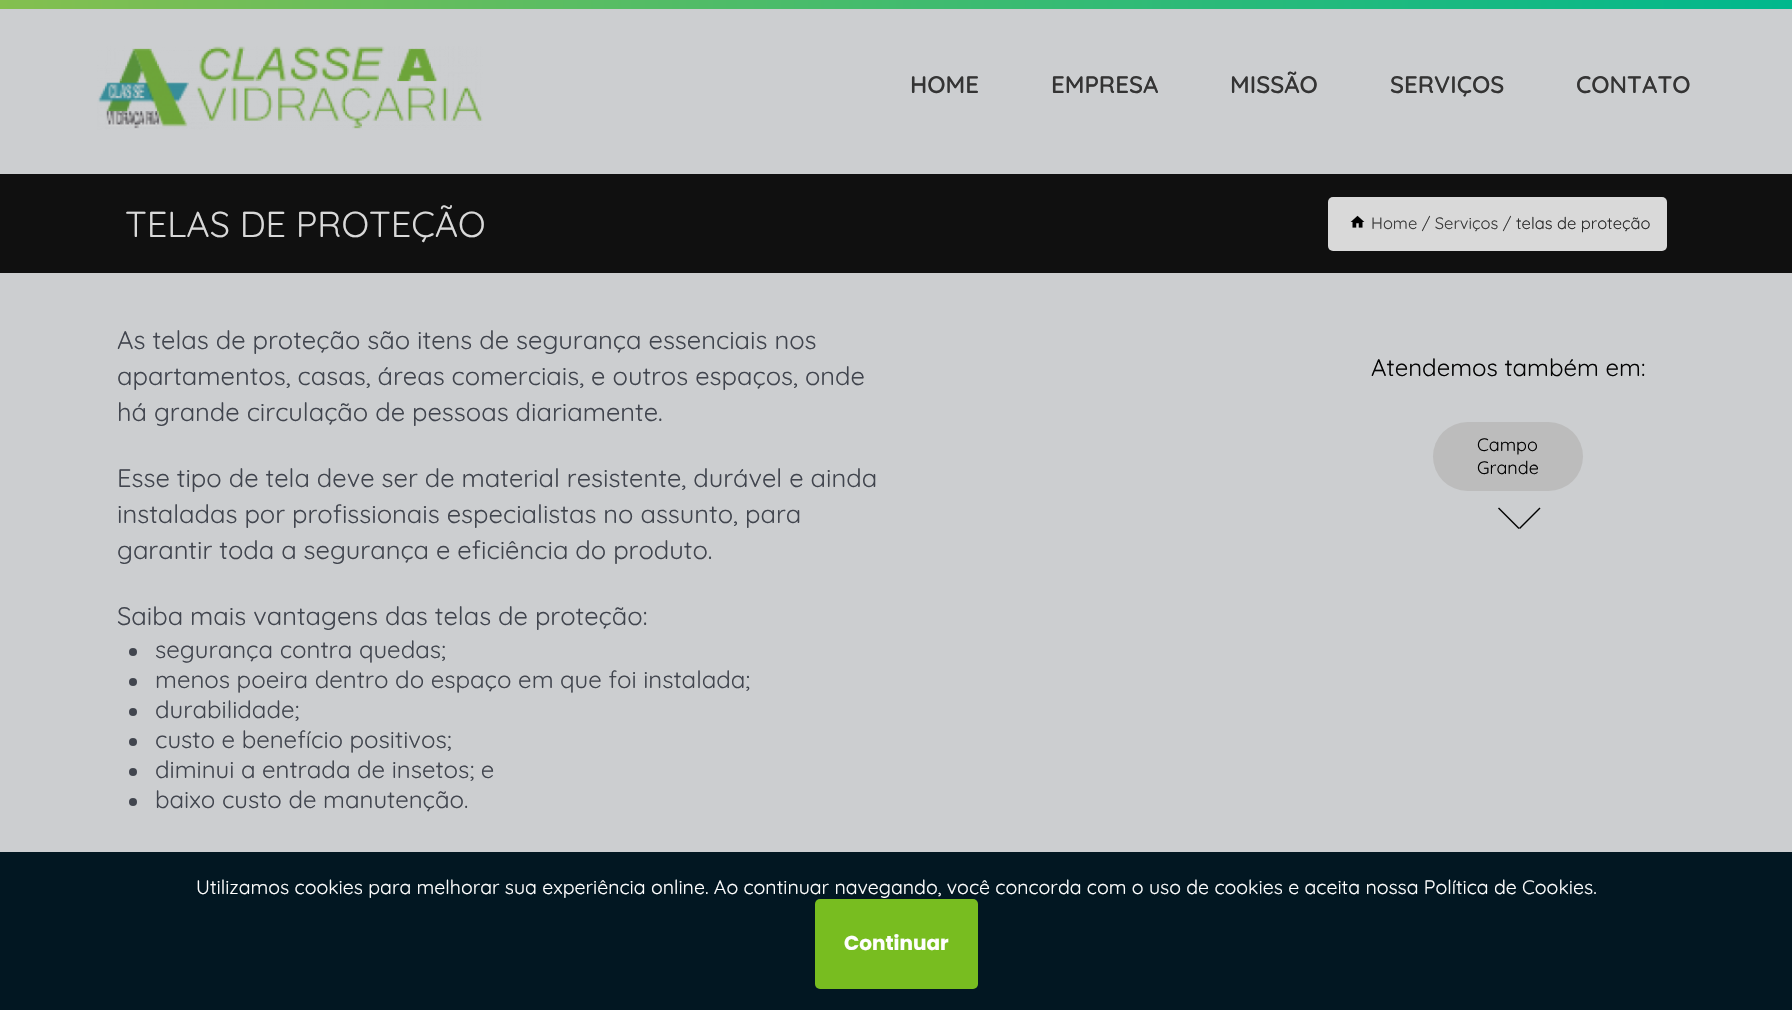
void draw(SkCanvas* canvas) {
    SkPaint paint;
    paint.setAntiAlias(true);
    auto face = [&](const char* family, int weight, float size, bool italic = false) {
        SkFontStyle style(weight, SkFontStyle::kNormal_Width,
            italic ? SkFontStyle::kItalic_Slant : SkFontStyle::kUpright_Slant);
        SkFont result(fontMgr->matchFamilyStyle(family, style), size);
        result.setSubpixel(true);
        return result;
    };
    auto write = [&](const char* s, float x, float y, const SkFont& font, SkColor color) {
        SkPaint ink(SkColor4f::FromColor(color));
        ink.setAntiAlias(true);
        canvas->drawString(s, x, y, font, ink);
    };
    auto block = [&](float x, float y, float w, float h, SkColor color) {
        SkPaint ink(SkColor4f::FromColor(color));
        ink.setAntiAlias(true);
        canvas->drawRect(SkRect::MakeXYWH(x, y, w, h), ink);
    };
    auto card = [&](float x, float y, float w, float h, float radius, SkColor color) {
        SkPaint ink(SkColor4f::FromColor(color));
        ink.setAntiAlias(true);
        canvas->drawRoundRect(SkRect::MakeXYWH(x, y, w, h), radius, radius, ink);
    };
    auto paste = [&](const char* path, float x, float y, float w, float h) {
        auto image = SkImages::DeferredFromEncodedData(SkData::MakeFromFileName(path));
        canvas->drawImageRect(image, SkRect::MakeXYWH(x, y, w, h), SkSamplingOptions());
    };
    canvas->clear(SkColorSetRGB(204, 206, 208));
    block(0, 852, 1792, 158, SkColorSetRGB(2, 23, 34));
    {
        const SkColor colors[] = {SkColorSetRGB(0, 184, 141), SkColorSetRGB(132, 191, 79)};
        const float stops[] = {0, 1};
        const SkPoint ends[] = {{1792, -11}, {0.2f, 20}};
        paint.setShader(SkGradientShader::MakeLinear(ends, colors, stops, 2, SkTileMode::kClamp));
        paint.setAlpha(255);
    }
    canvas->drawRect(SkRect::MakeXYWH(0, 0, 1792, 9), paint);
    paste("pic1.png", 97, 46, 386, 84);
    auto kFont1 = face("Quicksand", 600, 24);
    write("HOME", 910, 93, kFont1, SkColorSetRGB(52, 52, 52));
    write("EMPRESA", 1051, 93, kFont1, SkColorSetRGB(52, 52, 52));
    write("MISSÃO", 1230, 93, kFont1, SkColorSetRGB(52, 52, 52));
    write("SERVIÇOS", 1390, 93, kFont1, SkColorSetRGB(52, 52, 52));
    write("CONTATO", 1576, 93, kFont1, SkColorSetRGB(52, 52, 52));
    block(0, 174, 1792, 99, SkColorSetRGB(16, 16, 16));
    auto kFont2 = face("Quicksand", 400, 36);
    write("TELAS DE PROTEÇÃO", 125, 237, kFont2, SkColorSetRGB(217, 217, 217));
    card(1328, 197, 339, 54, 5, SkColorSetRGB(217, 217, 217));
    paste("pic2.png", 1350, 215, 15, 13);
    auto kFont3 = face("Quicksand", 400, 16.5f);
    write("Home / Serviços /", 1371, 229, kFont3, SkColorSetRGB(58, 58, 58));
    write("telas de proteção", 1516, 229, kFont3, SkColorSetRGB(43, 43, 43));
    auto kFont4 = face("Quicksand", 400, 25.5f);
    write("As telas de proteção são itens de segurança essenciais nos", 117, 349, kFont4, SkColorSetRGB(65, 69, 78));
    write("apartamentos, casas, áreas comerciais, e outros espaços, onde", 117, 385, kFont4, SkColorSetRGB(65, 69, 78));
    write("há grande circulação de pessoas diariamente.", 117, 421, kFont4, SkColorSetRGB(65, 69, 78));
    write("Esse tipo de tela deve ser de material resistente, durável e ainda", 117, 487, kFont4, SkColorSetRGB(65, 69, 78));
    write("instaladas por profissionais especialistas no assunto, para", 117, 523, kFont4, SkColorSetRGB(65, 69, 78));
    write("garantir toda a segurança e eficiência do produto.", 117, 559, kFont4, SkColorSetRGB(65, 69, 78));
    write("Saiba mais vantagens das telas de proteção:", 117, 625, kFont4, SkColorSetRGB(65, 69, 78));
    paint.setShader(nullptr);
    paint.setColor(SkColorSetRGB(65, 69, 78));
    canvas->drawCircle(133, 652, 4, paint);
    auto kFont5 = face("Quicksand", 400, 24);
    write("segurança contra quedas;", 155, 658, kFont5, SkColorSetRGB(65, 69, 78));
    canvas->drawCircle(133, 682, 4, paint);
    write("menos poeira dentro do espaço em que foi instalada;", 155, 688, kFont5, SkColorSetRGB(65, 69, 78));
    canvas->drawCircle(133, 712, 4, paint);
    write("durabilidade;", 155, 718, kFont5, SkColorSetRGB(65, 69, 78));
    canvas->drawCircle(133, 742, 4, paint);
    write("custo e benefício positivos;", 155, 748, kFont5, SkColorSetRGB(65, 69, 78));
    canvas->drawCircle(133, 772, 4, paint);
    write("diminui a entrada de insetos; e", 155, 778, kFont5, SkColorSetRGB(65, 69, 78));
    canvas->drawCircle(133, 802, 4, paint);
    write("baixo custo de manutenção.", 155, 808, kFont5, SkColorSetRGB(65, 69, 78));
    write("Atendemos também em:", 1371, 376, kFont5, SkColorSetRGB(3, 3, 3));
    card(1433, 422, 150, 69, 34.5f, SkColorSetRGB(188, 188, 188));
    auto kFont6 = face("Quicksand", 400, 18);
    write("Campo", 1477, 451, kFont6, SkColorSetRGB(3, 3, 3));
    write("Grande", 1477, 474, kFont6, SkColorSetRGB(3, 3, 3));
    paint.setColor(SK_ColorBLACK);
    canvas->drawPath(SkPathBuilder().moveTo(1499, 507.5f).lineTo(1519.5f, 528).lineTo(1518.5f, 529).lineTo(1498, 508.5f).close().detach(), paint);
    canvas->drawPath(SkPathBuilder().moveTo(1519, 528).lineTo(1539.5f, 507.5f).lineTo(1540.5f, 508.5f).lineTo(1520, 529).close().detach(), paint);
    auto kFont7 = face("Quicksand", 400, 19.5f);
    write("Utilizamos cookies para melhorar sua experiência online. Ao continuar navegando, você concorda com o uso de cookies e aceita nossa Política de Cookies.", 196, 894, kFont7, SkColorSetRGB(254, 254, 254));
    card(815, 899, 163, 90, 5, SkColorSetRGB(120, 189, 32));
    auto kFont8 = face("Poppins", 700, 20);
    write("Continuar", 844, 950, kFont8, SkColorSetRGB(254, 254, 254));
}
